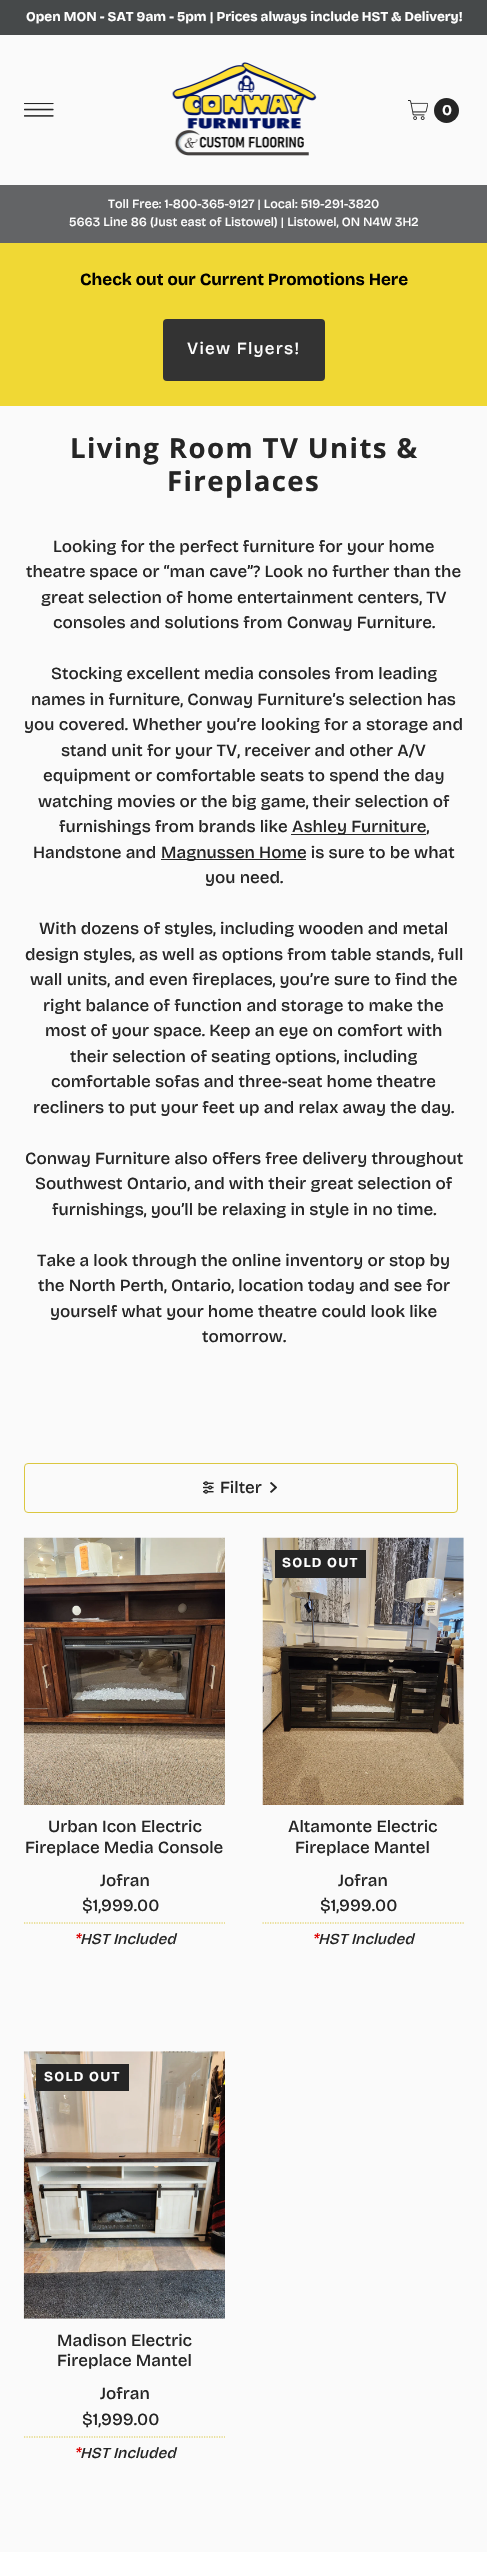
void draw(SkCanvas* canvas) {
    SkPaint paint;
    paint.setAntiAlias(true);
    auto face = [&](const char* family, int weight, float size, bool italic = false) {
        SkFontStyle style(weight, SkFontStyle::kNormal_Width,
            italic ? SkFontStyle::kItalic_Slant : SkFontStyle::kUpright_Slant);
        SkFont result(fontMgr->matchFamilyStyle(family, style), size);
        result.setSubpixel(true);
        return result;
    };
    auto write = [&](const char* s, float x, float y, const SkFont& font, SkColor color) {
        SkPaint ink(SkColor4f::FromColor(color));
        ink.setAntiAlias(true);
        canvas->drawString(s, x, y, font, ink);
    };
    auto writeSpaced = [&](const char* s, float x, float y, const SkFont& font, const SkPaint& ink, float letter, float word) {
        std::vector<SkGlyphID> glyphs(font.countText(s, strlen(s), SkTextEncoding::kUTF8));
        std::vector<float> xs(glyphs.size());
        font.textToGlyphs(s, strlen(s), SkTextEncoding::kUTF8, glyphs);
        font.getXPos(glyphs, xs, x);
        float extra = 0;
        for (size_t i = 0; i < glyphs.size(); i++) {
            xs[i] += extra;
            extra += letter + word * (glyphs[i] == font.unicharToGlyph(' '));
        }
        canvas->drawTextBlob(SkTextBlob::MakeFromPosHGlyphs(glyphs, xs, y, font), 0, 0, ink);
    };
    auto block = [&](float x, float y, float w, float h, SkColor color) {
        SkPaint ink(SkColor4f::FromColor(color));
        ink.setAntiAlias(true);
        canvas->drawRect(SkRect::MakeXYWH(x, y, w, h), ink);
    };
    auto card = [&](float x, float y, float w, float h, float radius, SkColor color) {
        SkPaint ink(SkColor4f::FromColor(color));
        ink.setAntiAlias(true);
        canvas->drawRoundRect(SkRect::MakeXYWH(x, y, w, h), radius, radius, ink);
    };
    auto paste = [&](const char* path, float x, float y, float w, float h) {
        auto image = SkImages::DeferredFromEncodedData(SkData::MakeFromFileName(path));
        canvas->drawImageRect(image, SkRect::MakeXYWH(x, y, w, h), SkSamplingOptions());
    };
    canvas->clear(SkColorSetRGB(250, 250, 250));
    block(0, 0, 487, 35, SkColorSetRGB(70, 73, 74));
    auto kFont1 = face("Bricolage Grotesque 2", 700, 13.45f);
    write("Open MON - SAT 9am - 5pm | Prices always include HST & Delivery!", 26, 21, kFont1, SK_ColorWHITE);
    paste("pic1.png", 24, 103, 30, 14);
    paste("pic2.png", 171, 62, 146, 94);
    paste("pic3.png", 408, 100, 20, 20);
    paint.setColor(SkColorSetRGB(37, 37, 37));
    canvas->drawCircle(446.5f, 110.5f, 12.5f, paint);
    auto kFont2 = face("Bricolage Grotesque 2", 700, 15);
    write("0", 442, 115, kFont2, SK_ColorWHITE);
    block(0, 185, 487, 58, SkColorSetRGB(99, 100, 102));
    auto kFont3 = face("Bricolage Grotesque 2", 500, 12.5f);
    write("Toll Free: 1-800-365-9127 | Local: 519-291-3820", 108, 208, kFont3, SK_ColorWHITE);
    write("5663 Line 86 (Just east of Listowel) | Listowel, ON N4W 3H2", 69, 226, kFont3, SK_ColorWHITE);
    block(0, 243, 487, 163, SkColorSetRGB(240, 216, 52));
    auto kFont4 = face("Bricolage Grotesque", 700, 17);
    write("Check out our Current Promotions Here", 80, 285, kFont4, SK_ColorBLACK);
    card(163, 319, 162, 62, 4, SkColorSetRGB(51, 51, 51));
    auto kFont5 = face("Bricolage Grotesque", 500, 17);
    paint.setColor(SK_ColorWHITE);
    writeSpaced("View Flyers!", 187, 354, kFont5, paint, 1.25f, 0);
    auto kFont6 = face("Open Sans", 700, 27.6f);
    paint.setColor(SkColorSetRGB(37, 37, 37));
    writeSpaced("Living Room TV Units &", 70, 458, kFont6, paint, 1.4f, 0);
    writeSpaced("Fireplaces", 167, 491, kFont6, paint, 1.4f, 0);
    write("Looking for the perfect furniture for your home", 53, 552, kFont5, SkColorSetRGB(37, 37, 37));
    write("theatre space or “man cave”? Look no further than the", 26, 577, kFont5, SkColorSetRGB(37, 37, 37));
    write("great selection of home entertainment centers, TV", 41, 603, kFont5, SkColorSetRGB(37, 37, 37));
    write("consoles and solutions from Conway Furniture.", 53, 628, kFont5, SkColorSetRGB(37, 37, 37));
    write("Stocking excellent media consoles from leading", 51, 679, kFont5, SkColorSetRGB(37, 37, 37));
    write("names in furniture, Conway Furniture’s selection has", 31, 705, kFont5, SkColorSetRGB(37, 37, 37));
    write("you covered. Whether you’re looking for a storage and", 24, 730, kFont5, SkColorSetRGB(37, 37, 37));
    write("stand unit for your TV, receiver and other A/V", 61, 756, kFont5, SkColorSetRGB(37, 37, 37));
    write("equipment or comfortable seats to spend the day", 43, 781, kFont5, SkColorSetRGB(37, 37, 37));
    write("watching movies or the big game, their selection of", 38, 807, kFont5, SkColorSetRGB(37, 37, 37));
    write("furnishings from brands like", 59, 832, kFont5, SkColorSetRGB(37, 37, 37));
    block(291, 834, 135, 1, SkColorSetRGB(37, 37, 37));
    write("Ashley Furniture,", 292, 832, kFont5, SkColorSetRGB(37, 37, 37));
    write("Handstone and", 33, 858, kFont5, SkColorSetRGB(37, 37, 37));
    block(161, 859, 145, 1, SkColorSetRGB(37, 37, 37));
    write("Magnussen Home is sure to be what", 161, 858, kFont5, SkColorSetRGB(37, 37, 37));
    write("you need.", 205, 883, kFont5, SkColorSetRGB(37, 37, 37));
    write("With dozens of styles, including wooden and metal", 39, 934, kFont5, SkColorSetRGB(37, 37, 37));
    write("design styles, as well as options from table stands, full", 25, 960, kFont5, SkColorSetRGB(37, 37, 37));
    write("wall units, and even fireplaces, you’re sure to find the", 30, 985, kFont5, SkColorSetRGB(37, 37, 37));
    write("right balance of function and storage to make the", 43, 1011, kFont5, SkColorSetRGB(37, 37, 37));
    write("most of your space. Keep an eye on comfort with", 45, 1036, kFont5, SkColorSetRGB(37, 37, 37));
    write("their selection of seating options, including", 70, 1062, kFont5, SkColorSetRGB(37, 37, 37));
    write("comfortable sofas and three-seat home theatre", 51, 1087, kFont5, SkColorSetRGB(37, 37, 37));
    write("recliners to put your feet up and relax away the day.", 33, 1113, kFont5, SkColorSetRGB(37, 37, 37));
    write("Conway Furniture also offers free delivery throughout", 25, 1164, kFont5, SkColorSetRGB(37, 37, 37));
    write("Southwest Ontario, and with their great selection of", 35, 1189, kFont5, SkColorSetRGB(37, 37, 37));
    write("furnishings, you’ll be relaxing in style in no time.", 52, 1215, kFont5, SkColorSetRGB(37, 37, 37));
    write("Take a look through the online inventory or stop by", 37, 1266, kFont5, SkColorSetRGB(37, 37, 37));
    write("the North Perth, Ontario, location today and see for", 38, 1291, kFont5, SkColorSetRGB(37, 37, 37));
    write("yourself what your home theatre could look like", 50, 1317, kFont5, SkColorSetRGB(37, 37, 37));
    write("tomorrow.", 202, 1342, kFont5, SkColorSetRGB(37, 37, 37));
    paint.setStyle(SkPaint::kStroke_Style);
    paint.setStrokeWidth(1);
    paint.setColor(SkColorSetRGB(219, 199, 64));
    canvas->drawRoundRect(SkRect::MakeXYWH(24.5f, 1463.5f, 433, 49), 3.5f, 3.5f, paint);
    paste("pic4.png", 203, 1481, 11, 13);
    write("Filter", 220, 1493, kFont5, SkColorSetRGB(37, 37, 37));
    paste("pic5.png", 270, 1482, 7, 11);
    paste("pic6.png", 23, 1537, 202, 268);
    write("Urban Icon Electric", 48, 1832, kFont5, SkColorSetRGB(37, 37, 37));
    write("Fireplace Media Console", 25, 1853, kFont5, SkColorSetRGB(37, 37, 37));
    write("Jofran", 100, 1886, kFont5, SkColorSetRGB(37, 37, 37));
    write("$1,999.00", 82, 1911, kFont5, SkColorSetRGB(37, 37, 37));
    paint.setStrokeWidth(1.2f);
    paint.setPathEffect(SkDashPathEffect::Make({{1.25f, 1.25f}}, 0));
    canvas->drawPath(SkPathBuilder().moveTo(24, 1923).lineTo(225, 1923).detach(), paint);
    paint.setPathEffect(nullptr);
    auto kFont7 = face("Bricolage Grotesque", 500, 15.25f, true);
    write("*", 74, 1944, kFont7, SkColorSetRGB(219, 0, 0));
    write("HST Included", 80, 1944, kFont7, SkColorSetRGB(37, 37, 37));
    paste("pic7.png", 262, 1537, 202, 268);
    block(275, 1550, 91, 28, SkColorSetRGB(37, 37, 37));
    auto kFont8 = face("Bricolage Grotesque 2", 700, 13.75f);
    paint.setStyle(SkPaint::kFill_Style);
    paint.setColor(SK_ColorWHITE);
    writeSpaced("SOLD OUT", 282, 1567, kFont8, paint, 1.25f, 0);
    write("Altamonte Electric", 288, 1832, kFont5, SkColorSetRGB(37, 37, 37));
    write("Fireplace Mantel", 295, 1853, kFont5, SkColorSetRGB(37, 37, 37));
    write("Jofran", 338, 1886, kFont5, SkColorSetRGB(37, 37, 37));
    write("$1,999.00", 320, 1911, kFont5, SkColorSetRGB(37, 37, 37));
    paint.setStyle(SkPaint::kStroke_Style);
    paint.setColor(SkColorSetRGB(219, 199, 64));
    paint.setPathEffect(SkDashPathEffect::Make({{1.25f, 1.25f}}, 0));
    canvas->drawPath(SkPathBuilder().moveTo(262.5f, 1923).lineTo(464, 1923).detach(), paint);
    paint.setPathEffect(nullptr);
    write("*", 312, 1944, kFont7, SkColorSetRGB(219, 0, 0));
    write("HST Included", 318, 1944, kFont7, SkColorSetRGB(37, 37, 37));
    paste("pic8.png", 23, 2051, 202, 268);
    block(36, 2064, 93, 27, SkColorSetRGB(37, 37, 37));
    paint.setStyle(SkPaint::kFill_Style);
    paint.setColor(SK_ColorWHITE);
    writeSpaced("SOLD OUT", 44, 2081, kFont8, paint, 1.25f, 0);
    write("Madison Electric", 57, 2346, kFont5, SkColorSetRGB(37, 37, 37));
    write("Fireplace Mantel", 57, 2366, kFont5, SkColorSetRGB(37, 37, 37));
    write("Jofran", 100, 2399, kFont5, SkColorSetRGB(37, 37, 37));
    write("$1,999.00", 82, 2425, kFont5, SkColorSetRGB(37, 37, 37));
    paint.setStyle(SkPaint::kStroke_Style);
    paint.setColor(SkColorSetRGB(219, 199, 64));
    paint.setPathEffect(SkDashPathEffect::Make({{1.25f, 1.25f}}, 0));
    canvas->drawPath(SkPathBuilder().moveTo(24, 2437).lineTo(225, 2437).detach(), paint);
    paint.setPathEffect(nullptr);
    write("*", 74, 2458, kFont7, SkColorSetRGB(219, 0, 0));
    write("HST Included", 80, 2458, kFont7, SkColorSetRGB(37, 37, 37));
}
